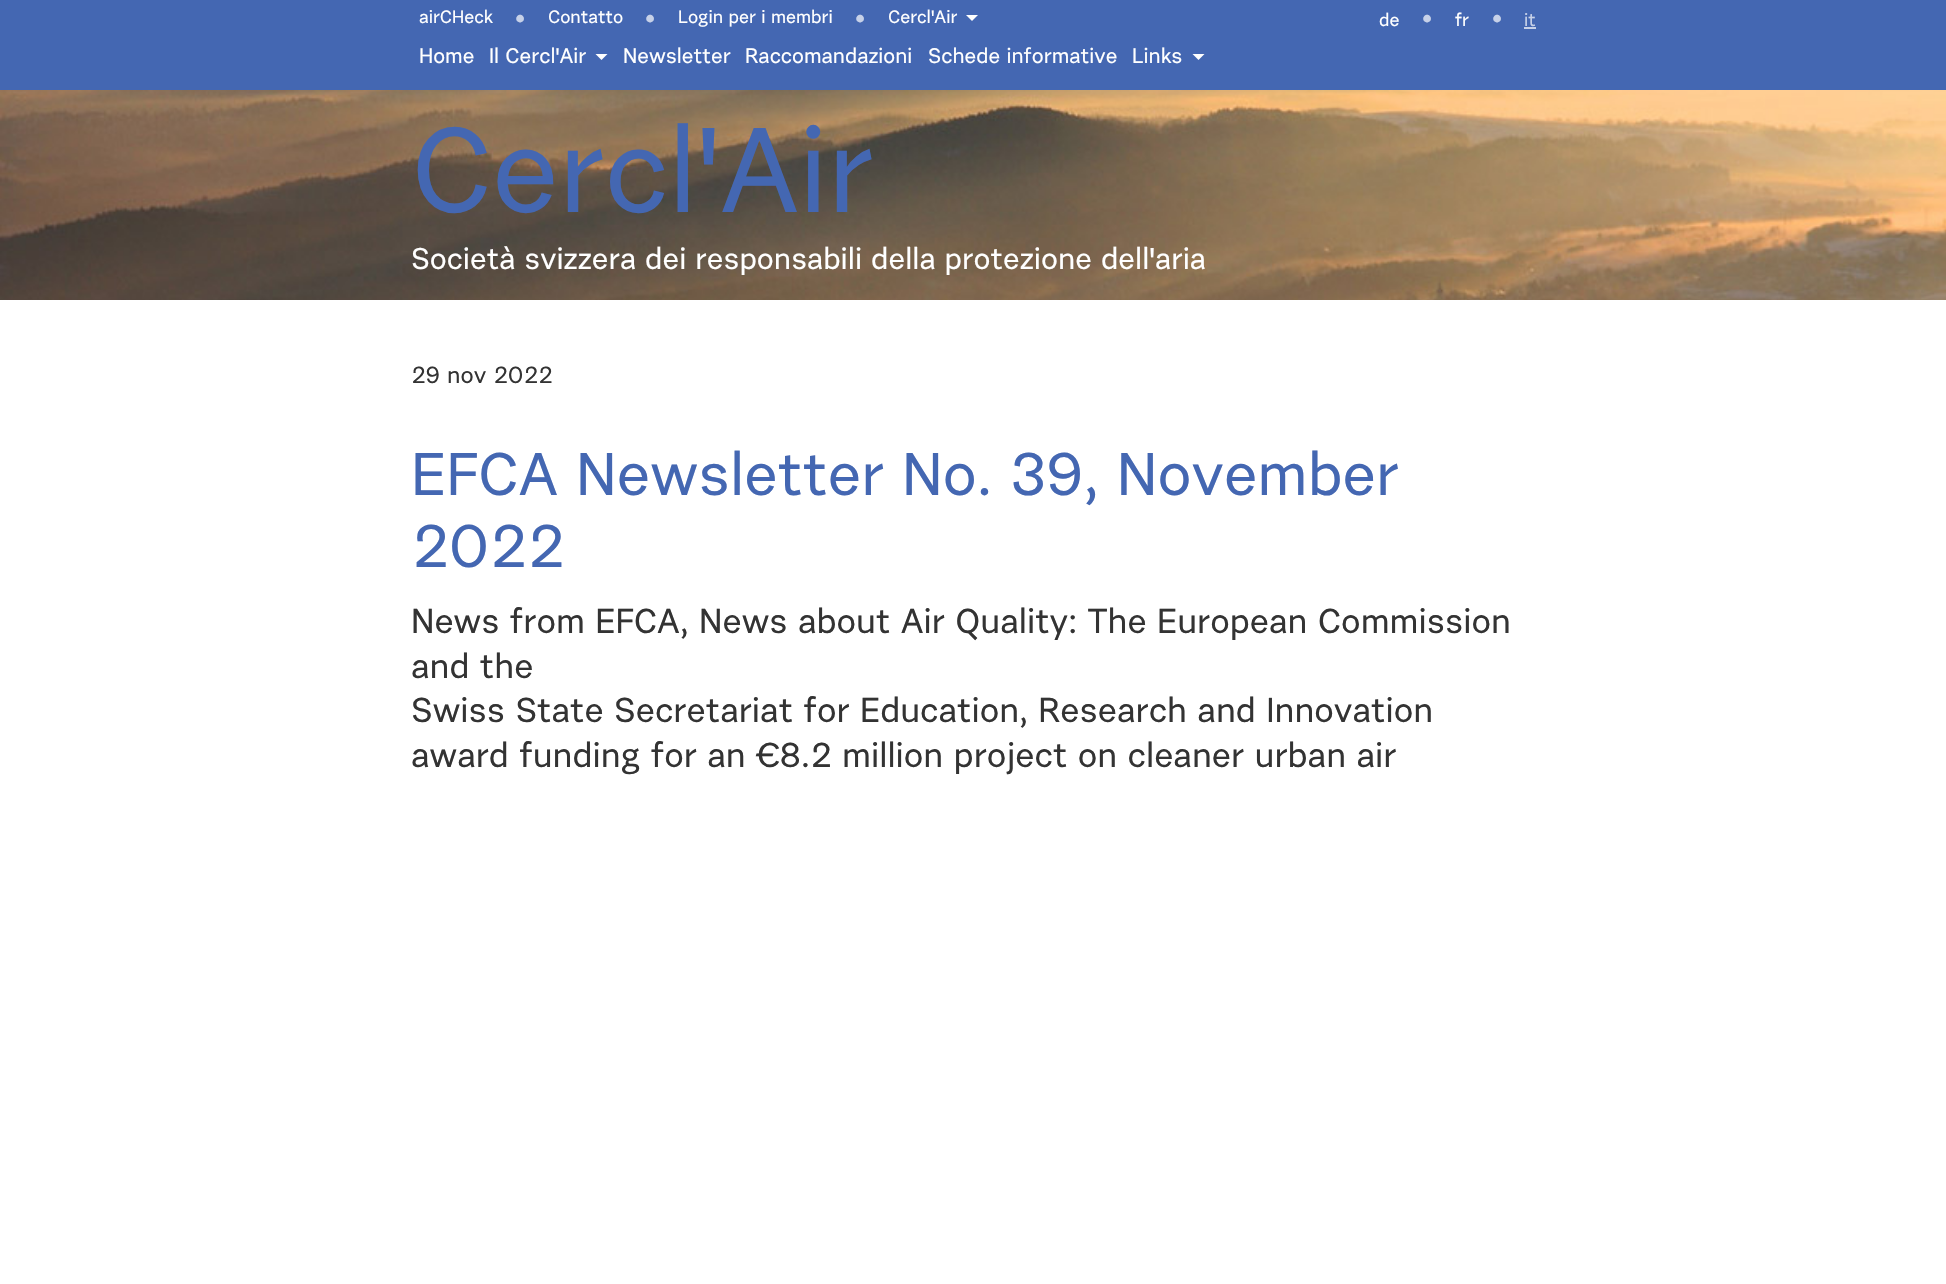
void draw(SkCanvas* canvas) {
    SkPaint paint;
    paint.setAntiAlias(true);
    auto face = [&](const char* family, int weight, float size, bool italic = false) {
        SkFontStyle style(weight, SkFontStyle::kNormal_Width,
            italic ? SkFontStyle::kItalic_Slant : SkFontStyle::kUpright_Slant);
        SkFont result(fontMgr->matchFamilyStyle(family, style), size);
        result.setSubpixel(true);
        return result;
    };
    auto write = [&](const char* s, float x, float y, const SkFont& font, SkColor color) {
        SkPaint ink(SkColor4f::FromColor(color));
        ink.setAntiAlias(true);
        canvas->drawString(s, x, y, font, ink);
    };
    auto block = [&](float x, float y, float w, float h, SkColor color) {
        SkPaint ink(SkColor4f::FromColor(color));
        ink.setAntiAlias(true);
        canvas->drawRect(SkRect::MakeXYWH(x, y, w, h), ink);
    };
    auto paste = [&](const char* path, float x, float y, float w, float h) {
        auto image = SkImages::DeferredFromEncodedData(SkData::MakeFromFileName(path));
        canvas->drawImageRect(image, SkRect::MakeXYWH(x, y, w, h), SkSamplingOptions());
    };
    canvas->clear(SK_ColorWHITE);
    block(0, 0, 1946, 90, SkColorSetRGB(68, 103, 178));
    auto kFont1 = face("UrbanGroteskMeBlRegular", 400, 18);
    write("airCHeck", 419, 23, kFont1, SK_ColorWHITE);
    auto kFont2 = face("UrbanGroteskMeBlRegular", 400, 21);
    write("•", 515, 26, kFont2, SkColorSetRGB(199, 209, 232));
    write("Contatto", 548, 23, kFont1, SK_ColorWHITE);
    write("•", 645, 26, kFont2, SkColorSetRGB(199, 209, 232));
    write("Login per i membri", 678, 23, kFont1, SK_ColorWHITE);
    write("•", 855, 26, kFont2, SkColorSetRGB(199, 209, 232));
    write("Cercl'Air", 888, 23, kFont1, SK_ColorWHITE);
    paint.setColor(SK_ColorWHITE);
    canvas->drawPath(SkPathBuilder().moveTo(966, 15).lineTo(978, 15).lineTo(972, 21).close().detach(), paint);
    write("de", 1379, 26, kFont1, SK_ColorWHITE);
    write("•", 1422, 26, kFont2, SkColorSetRGB(199, 209, 232));
    write("fr", 1455, 26, kFont1, SK_ColorWHITE);
    write("•", 1492, 26, kFont2, SkColorSetRGB(199, 209, 232));
    write("it", 1524, 26, kFont1, SkColorSetRGB(199, 209, 232));
    block(1524, 27, 12, 2, SkColorSetRGB(199, 209, 232));
    write("Home", 419, 63, kFont2, SK_ColorWHITE);
    write("Il Cercl'Air", 489, 63, kFont2, SK_ColorWHITE);
    canvas->drawPath(SkPathBuilder().moveTo(595.5f, 54).lineTo(607.5f, 54).lineTo(601.5f, 60).close().detach(), paint);
    write("Newsletter", 623, 63, kFont2, SK_ColorWHITE);
    write("Raccomandazioni", 745, 63, kFont2, SK_ColorWHITE);
    write("Schede informative", 928, 63, kFont2, SK_ColorWHITE);
    write("Links", 1132, 63, kFont2, SK_ColorWHITE);
    canvas->drawPath(SkPathBuilder().moveTo(1192.5f, 54).lineTo(1204.5f, 54).lineTo(1198.5f, 60).close().detach(), paint);
    paste("pic1.png", 0, 90, 1946, 210);
    auto kFont3 = face("UrbanGroteskMeBlRegular", 400, 120);
    write("Cercl'Air", 411, 212, kFont3, SkColorSetRGB(68, 103, 178));
    auto kFont4 = face("UrbanGroteskMeBlRegular", 400, 30);
    write("Società svizzera dei responsabili della protezione dell'aria", 411, 269, kFont4, SK_ColorWHITE);
    auto kFont5 = face("UrbanGroteskMeBlRegular", 400, 23.25f);
    write("29 nov 2022", 411, 383, kFont5, SkColorSetRGB(51, 51, 51));
    auto kFont6 = face("UrbanGroteskMeBlRegular", 400, 60);
    write("EFCA Newsletter No. 39, November", 411, 495, kFont6, SkColorSetRGB(68, 103, 178));
    write("2022", 411, 567, kFont6, SkColorSetRGB(68, 103, 178));
    auto kFont7 = face("UrbanGroteskMeBlRegular", 400, 34.5f);
    write("News from EFCA, News about Air Quality: The European Commission", 411, 633, kFont7, SkColorSetRGB(51, 51, 51));
    write("and the", 411, 678, kFont7, SkColorSetRGB(51, 51, 51));
    write("Swiss State Secretariat for Education, Research and Innovation", 411, 722, kFont7, SkColorSetRGB(51, 51, 51));
    write("award funding for an €8.2 million project on cleaner urban air", 411, 767, kFont7, SkColorSetRGB(51, 51, 51));
}
